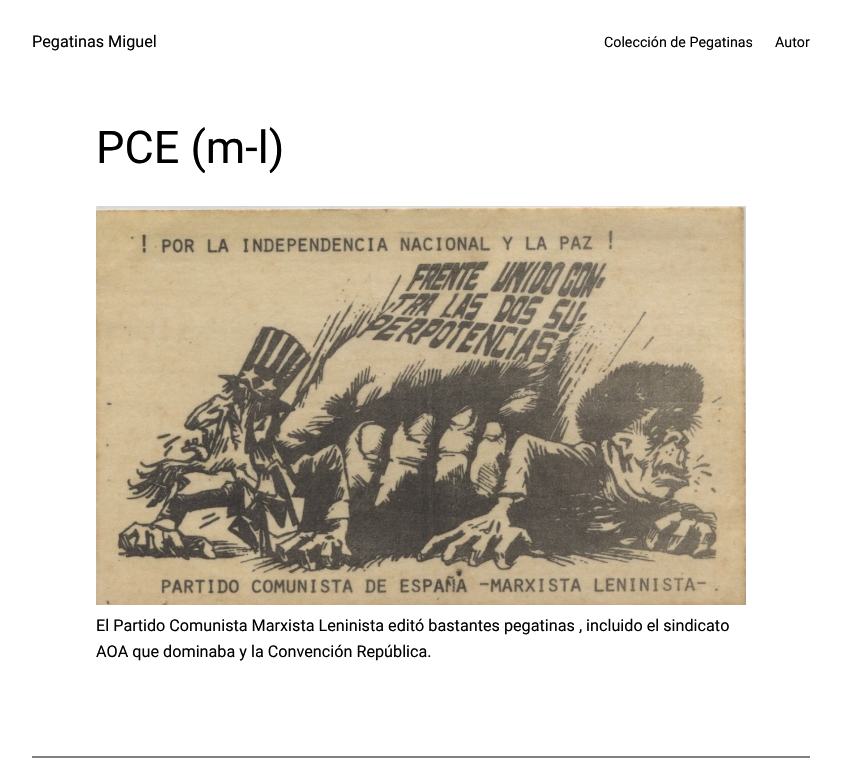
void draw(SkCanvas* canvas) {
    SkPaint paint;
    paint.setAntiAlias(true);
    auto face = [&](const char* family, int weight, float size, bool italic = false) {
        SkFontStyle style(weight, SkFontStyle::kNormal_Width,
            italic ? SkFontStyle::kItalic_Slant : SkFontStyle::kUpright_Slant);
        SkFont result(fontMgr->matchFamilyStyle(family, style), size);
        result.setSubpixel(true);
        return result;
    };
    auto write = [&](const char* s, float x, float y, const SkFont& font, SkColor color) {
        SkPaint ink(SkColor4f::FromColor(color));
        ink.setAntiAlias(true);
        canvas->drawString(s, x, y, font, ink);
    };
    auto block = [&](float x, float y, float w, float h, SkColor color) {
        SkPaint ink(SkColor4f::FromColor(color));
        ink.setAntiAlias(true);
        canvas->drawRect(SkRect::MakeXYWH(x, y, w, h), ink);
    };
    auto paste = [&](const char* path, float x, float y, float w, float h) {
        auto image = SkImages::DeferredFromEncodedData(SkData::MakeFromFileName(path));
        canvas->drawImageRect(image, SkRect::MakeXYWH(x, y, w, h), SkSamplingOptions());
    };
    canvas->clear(SK_ColorWHITE);
    auto kFont1 = face("Roboto", 400, 16.2f);
    write("Pegatinas Miguel", 32, 47, kFont1, SK_ColorBLACK);
    auto kFont2 = face("Roboto", 400, 14.25f);
    write("Colección de Pegatinas", 604, 47, kFont2, SK_ColorBLACK);
    write("Autor", 775, 47, kFont2, SK_ColorBLACK);
    auto kFont3 = face("Roboto", 400, 45);
    write("PCE (m-l)", 96, 163, kFont3, SK_ColorBLACK);
    paste("pic1.png", 96, 206, 650, 399);
    write("El Partido Comunista Marxista Leninista editó bastantes pegatinas , incluido el sindicato", 96, 631, kFont1, SK_ColorBLACK);
    write("AOA que dominaba y la Convención República.", 96, 657, kFont1, SK_ColorBLACK);
    block(32, 756, 778, 2, SkColorSetRGB(128, 128, 128));
}
